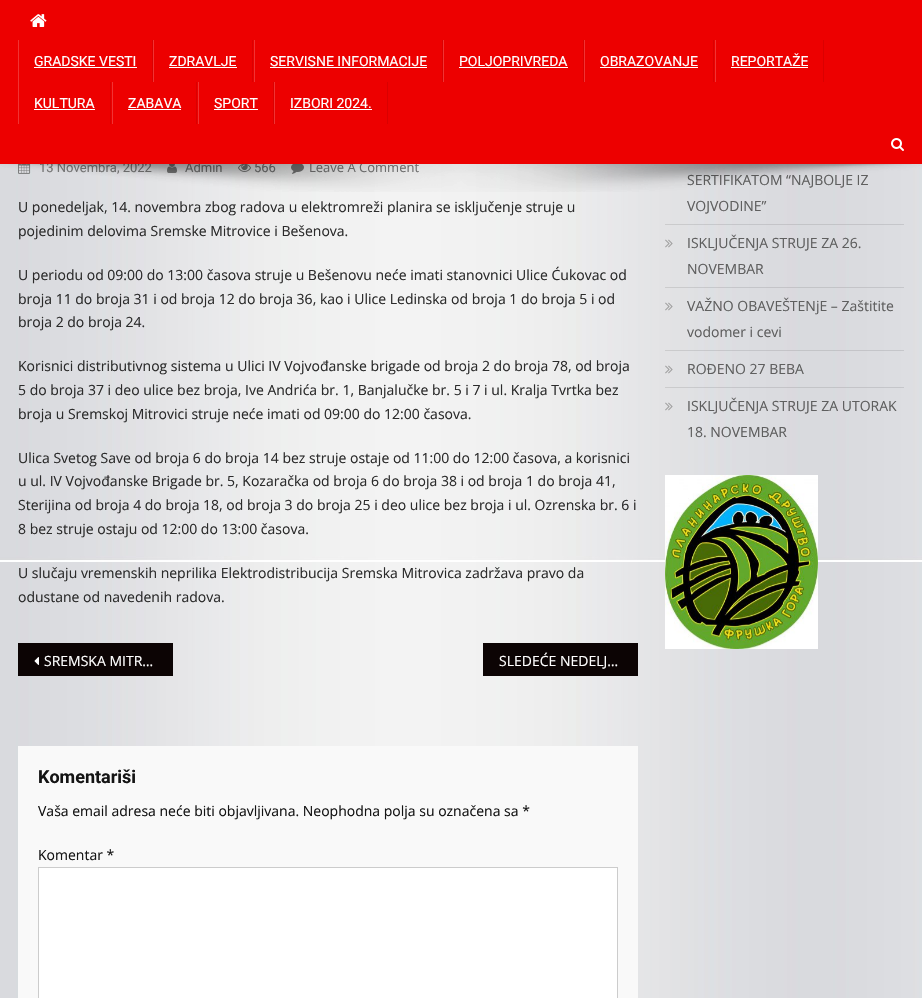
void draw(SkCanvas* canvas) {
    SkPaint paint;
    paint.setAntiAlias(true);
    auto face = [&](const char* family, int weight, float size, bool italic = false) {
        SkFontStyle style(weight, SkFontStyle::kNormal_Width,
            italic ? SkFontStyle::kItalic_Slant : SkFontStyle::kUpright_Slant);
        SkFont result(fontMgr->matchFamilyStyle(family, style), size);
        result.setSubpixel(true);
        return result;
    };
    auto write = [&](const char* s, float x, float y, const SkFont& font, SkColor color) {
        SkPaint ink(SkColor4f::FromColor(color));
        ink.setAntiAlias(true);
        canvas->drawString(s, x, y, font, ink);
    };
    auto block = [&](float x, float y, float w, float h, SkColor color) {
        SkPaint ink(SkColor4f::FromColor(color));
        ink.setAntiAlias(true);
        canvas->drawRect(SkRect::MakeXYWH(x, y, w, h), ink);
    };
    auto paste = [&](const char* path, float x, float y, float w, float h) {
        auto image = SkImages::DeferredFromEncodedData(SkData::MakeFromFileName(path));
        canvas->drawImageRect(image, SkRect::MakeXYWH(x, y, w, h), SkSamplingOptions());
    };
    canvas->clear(SK_ColorWHITE);
    paste("pic1.png", 0, 164, 922, 834);
    auto kFont1 = face("Roboto", 400, 13);
    write("13 Novembra, 2022", 39, 172, kFont1, SkColorSetRGB(118, 118, 118));
    write("Admin", 185, 172, kFont1, SkColorSetRGB(118, 118, 118));
    write("566", 254, 172, kFont1, SkColorSetRGB(118, 118, 118));
    auto kFont2 = face("Open Sans", 400, 13);
    write("Leave A Comment", 309, 172, kFont2, SkColorSetRGB(118, 118, 118));
    block(0, 0, 922, 164, SkColorSetRGB(237, 0, 0));
    paste("pic2.png", 30, 14, 17, 13);
    block(152, 40, 1, 42, SkColorSetRGB(218, 0, 0));
    block(18, 40, 1, 84, SkColorSetRGB(241, 51, 51));
    auto kFont3 = face("Roboto", 400, 14);
    write("GRADSKE VESTI", 34, 66, kFont3, SK_ColorWHITE);
    block(34, 67, 103, 1, SK_ColorWHITE);
    block(252, 40, 1, 42, SkColorSetRGB(218, 0, 0));
    block(153, 40, 1, 42, SkColorSetRGB(241, 51, 51));
    write("ZDRAVLJE", 169, 66, kFont3, SK_ColorWHITE);
    block(169, 67, 68, 1, SK_ColorWHITE);
    block(442, 40, 1, 42, SkColorSetRGB(218, 0, 0));
    block(254, 40, 1, 42, SkColorSetRGB(241, 51, 51));
    write("SERVISNE INFORMACIJE", 270, 66, kFont3, SK_ColorWHITE);
    block(270, 67, 157, 1, SK_ColorWHITE);
    block(583, 40, 1, 42, SkColorSetRGB(218, 0, 0));
    block(443, 40, 1, 42, SkColorSetRGB(241, 51, 51));
    write("POLJOPRIVREDA", 459, 66, kFont3, SK_ColorWHITE);
    block(459, 67, 109, 1, SK_ColorWHITE);
    block(713, 40, 1, 42, SkColorSetRGB(218, 0, 0));
    block(584, 40, 1, 42, SkColorSetRGB(241, 51, 51));
    write("OBRAZOVANJE", 600, 66, kFont3, SK_ColorWHITE);
    block(600, 67, 98, 1, SK_ColorWHITE);
    block(823, 40, 1, 42, SkColorSetRGB(218, 0, 0));
    block(715, 40, 1, 42, SkColorSetRGB(241, 51, 51));
    write("REPORTAŽE", 731, 66, kFont3, SK_ColorWHITE);
    block(731, 67, 77, 1, SK_ColorWHITE);
    block(110, 82, 1, 42, SkColorSetRGB(218, 0, 0));
    write("KULTURA", 34, 108, kFont3, SK_ColorWHITE);
    block(34, 109, 61, 1, SK_ColorWHITE);
    block(196, 82, 1, 42, SkColorSetRGB(218, 0, 0));
    block(112, 82, 1, 42, SkColorSetRGB(241, 51, 51));
    write("ZABAVA", 128, 108, kFont3, SK_ColorWHITE);
    block(128, 109, 53, 1, SK_ColorWHITE);
    block(273, 82, 1, 42, SkColorSetRGB(218, 0, 0));
    block(198, 82, 1, 42, SkColorSetRGB(241, 51, 51));
    write("SPORT", 214, 108, kFont3, SK_ColorWHITE);
    block(214, 109, 44, 1, SK_ColorWHITE);
    block(387, 82, 1, 42, SkColorSetRGB(218, 0, 0));
    block(274, 82, 1, 42, SkColorSetRGB(241, 51, 51));
    write("IZBORI 2024.", 290, 108, kFont3, SK_ColorWHITE);
    block(290, 109, 82, 1, SK_ColorWHITE);
    paste("pic3.png", 891, 138, 13, 13);
    paste("pic5.png", 18, 164, 13, 10);
    paste("pic6.png", 167, 164, 10, 9);
    paste("pic7.png", 238, 164, 13, 8);
    paste("pic8.png", 291, 164, 13, 10);
    auto kFont4 = face("Open Sans", 400, 14);
    write("SERTIFIKATOM “NAJBOLJE IZ", 687, 185, kFont4, SkColorSetRGB(95, 95, 95));
    paste("pic4.png", 0, 164, 922, 28);
    write("U ponedeljak, 14. novembra zbog radova u elektromreži planira se isključenje struje u", 18, 212, kFont4, SkColorSetRGB(43, 43, 43));
    write("pojedinim delovima Sremske Mitrovice i Bešenova.", 18, 236, kFont4, SkColorSetRGB(43, 43, 43));
    write("U periodu od 09:00 do 13:00 časova struje u Bešenovu neće imati stanovnici Ulice Ćukovac od", 18, 280, kFont4, SkColorSetRGB(43, 43, 43));
    write("broja 11 do broja 31 i od broja 12 do broja 36, kao i Ulice Ledinska od broja 1 do broja 5 i od", 18, 304, kFont4, SkColorSetRGB(43, 43, 43));
    write("broja 2 do broja 24.", 18, 327, kFont4, SkColorSetRGB(43, 43, 43));
    write("Korisnici distributivnog sistema u Ulici IV Vojvođanske brigade od broja 2 do broja 78, od broja", 18, 371, kFont4, SkColorSetRGB(43, 43, 43));
    write("5 do broja 37 i deo ulice bez broja, Ive Andrića br. 1, Banjalučke br. 5 i 7 i ul. Kralja Tvrtka bez", 18, 395, kFont4, SkColorSetRGB(43, 43, 43));
    write("broja u Sremskoj Mitrovici struje neće imati od 09:00 do 12:00 časova.", 18, 419, kFont4, SkColorSetRGB(43, 43, 43));
    write("Ulica Svetog Save od broja 6 do broja 14 bez struje ostaje od 11:00 do 12:00 časova, a korisnici", 18, 463, kFont4, SkColorSetRGB(43, 43, 43));
    write("u ul. IV Vojvođanske Brigade br. 5, Kozaračka od broja 6 do broja 38 i od broja 1 do broja 41,", 18, 486, kFont4, SkColorSetRGB(43, 43, 43));
    write("Sterijina od broja 4 do broja 18, od broja 3 do broja 25 i deo ulice bez broja i ul. Ozrenska br. 6 i", 18, 510, kFont4, SkColorSetRGB(43, 43, 43));
    write("8 bez struje ostaju od 12:00 do 13:00 časova.", 18, 534, kFont4, SkColorSetRGB(43, 43, 43));
    write("U slučaju vremenskih neprilika Elektrodistribucija Sremska Mitrovica zadržava pravo da", 18, 578, kFont4, SkColorSetRGB(43, 43, 43));
    write("odustane od navedenih radova.", 18, 602, kFont4, SkColorSetRGB(43, 43, 43));
    block(18, 643, 155, 33, SkColorSetRGB(12, 4, 4));
    paste("pic9.png", 34, 657, 5, 8);
    write("SREMSKA MITR…", 44, 666, kFont4, SK_ColorWHITE);
    block(483, 643, 155, 33, SkColorSetRGB(12, 4, 4));
    write("SLEDEĆE NEDELJ…", 499, 666, kFont4, SK_ColorWHITE);
    block(18, 746, 620, 252, SkColorSetRGB(249, 249, 249));
    auto kFont5 = face("Roboto", 700, 18);
    write("Komentariši", 38, 783, kFont5, SkColorSetRGB(20, 20, 20));
    write("Vaša email adresa neće biti objavljivana. Neophodna polja su označena sa *", 38, 816, kFont4, SkColorSetRGB(20, 20, 20));
    write("Komentar *", 38, 860, kFont4, SkColorSetRGB(20, 20, 20));
    paint.setColor(SK_ColorWHITE);
    canvas->drawRect(SkRect::MakeXYWH(38.5f, 867.5f, 579, 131), paint);
    paint.setStyle(SkPaint::kStroke_Style);
    paint.setStrokeWidth(1);
    paint.setColor(SkColorSetRGB(204, 204, 204));
    canvas->drawRect(SkRect::MakeXYWH(38.5f, 867.5f, 579, 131), paint);
    block(665, 224, 239, 1, SkColorSetARGB(26, 0, 0, 0));
    write("VOJVODINE”", 687, 211, kFont4, SkColorSetRGB(95, 95, 95));
    block(665, 287, 239, 1, SkColorSetARGB(26, 0, 0, 0));
    paste("pic10.png", 665, 239, 8, 9);
    write("ISKLJUČENJA STRUJE ZA 26.", 687, 248, kFont4, SkColorSetRGB(95, 95, 95));
    write("NOVEMBAR", 687, 274, kFont4, SkColorSetRGB(95, 95, 95));
    block(665, 350, 239, 1, SkColorSetARGB(26, 0, 0, 0));
    paste("pic10.png", 665, 302, 8, 9);
    write("VAŽNO OBAVEŠTENjE – Zaštitite", 687, 311, kFont4, SkColorSetRGB(95, 95, 95));
    write("vodomer i cevi", 687, 337, kFont4, SkColorSetRGB(95, 95, 95));
    block(665, 387, 239, 1, SkColorSetARGB(26, 0, 0, 0));
    paste("pic10.png", 665, 365, 8, 9);
    write("ROĐENO 27 BEBA", 687, 374, kFont4, SkColorSetRGB(95, 95, 95));
    paste("pic10.png", 665, 402, 8, 9);
    write("ISKLJUČENJA STRUJE ZA UTORAK", 687, 411, kFont4, SkColorSetRGB(95, 95, 95));
    write("18. NOVEMBAR", 687, 437, kFont4, SkColorSetRGB(95, 95, 95));
    paste("pic11.png", 665, 475, 153, 174);
}
